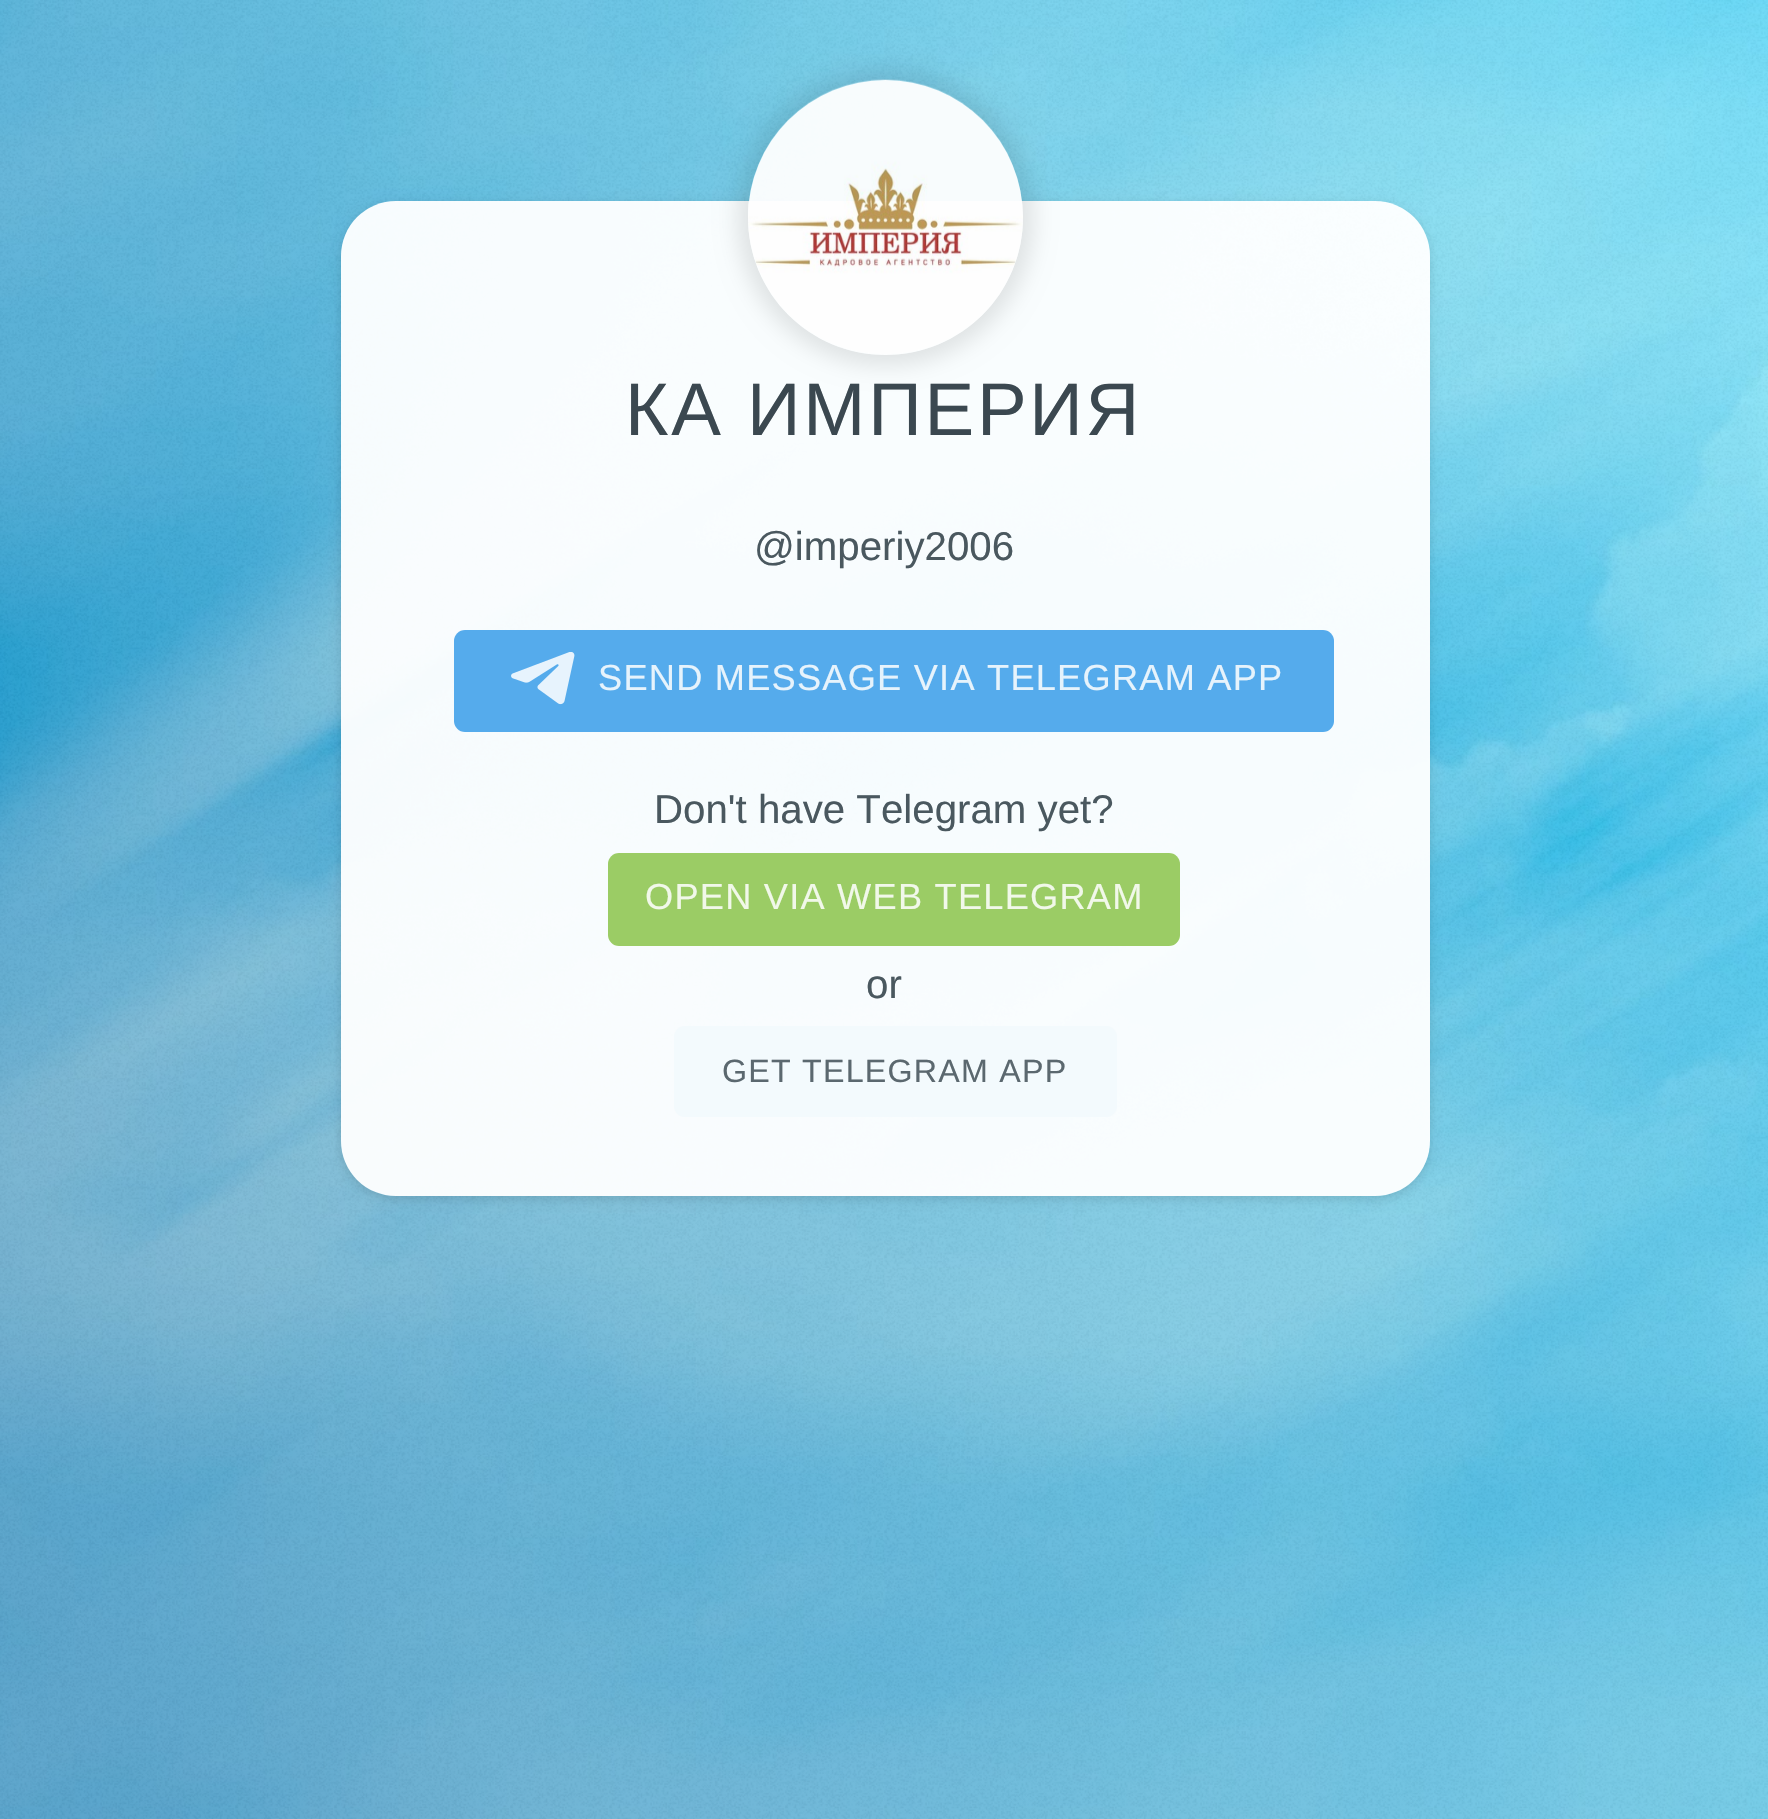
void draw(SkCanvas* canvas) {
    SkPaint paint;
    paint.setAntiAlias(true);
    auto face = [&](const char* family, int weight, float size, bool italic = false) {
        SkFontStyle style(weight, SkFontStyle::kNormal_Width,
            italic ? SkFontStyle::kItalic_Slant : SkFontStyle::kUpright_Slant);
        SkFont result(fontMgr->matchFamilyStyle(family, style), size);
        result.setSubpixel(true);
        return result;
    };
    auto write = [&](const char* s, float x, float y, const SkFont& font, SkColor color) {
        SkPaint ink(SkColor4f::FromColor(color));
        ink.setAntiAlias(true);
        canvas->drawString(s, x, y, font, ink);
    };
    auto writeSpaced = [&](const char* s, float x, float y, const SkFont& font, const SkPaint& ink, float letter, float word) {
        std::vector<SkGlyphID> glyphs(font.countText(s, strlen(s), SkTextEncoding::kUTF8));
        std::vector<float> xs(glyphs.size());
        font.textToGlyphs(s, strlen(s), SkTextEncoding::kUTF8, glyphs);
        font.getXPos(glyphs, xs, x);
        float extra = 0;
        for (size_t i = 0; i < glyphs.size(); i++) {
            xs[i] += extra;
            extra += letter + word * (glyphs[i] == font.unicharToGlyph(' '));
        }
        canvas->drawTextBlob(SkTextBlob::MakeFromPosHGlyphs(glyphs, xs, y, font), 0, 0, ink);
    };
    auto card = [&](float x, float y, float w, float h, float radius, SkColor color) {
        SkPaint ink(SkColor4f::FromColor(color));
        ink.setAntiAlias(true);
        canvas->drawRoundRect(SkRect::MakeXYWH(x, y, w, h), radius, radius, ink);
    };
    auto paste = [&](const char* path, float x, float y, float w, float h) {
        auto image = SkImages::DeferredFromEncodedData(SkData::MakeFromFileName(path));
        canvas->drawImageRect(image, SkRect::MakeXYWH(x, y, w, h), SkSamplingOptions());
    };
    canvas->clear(SK_ColorWHITE);
    paste("pic1.png", 0, 0, 1768, 1819);
    canvas->save();
    canvas->clipPath(SkPathBuilder(SkPathFillType::kEvenOdd).moveTo(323, 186).lineTo(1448, 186).lineTo(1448, 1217).lineTo(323, 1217).close().moveTo(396, 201).lineTo(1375, 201).cubicTo(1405.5f, 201, 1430, 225.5f, 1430, 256).lineTo(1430, 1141).cubicTo(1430, 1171.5f, 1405.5f, 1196, 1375, 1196).lineTo(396, 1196).cubicTo(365.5f, 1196, 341, 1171.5f, 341, 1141).lineTo(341, 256).cubicTo(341, 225.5f, 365.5f, 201, 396, 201).close().detach(), true);
    paint.setColor(SkColorSetARGB(33, 0, 0, 0));
    paint.setMaskFilter(SkMaskFilter::MakeBlur(kNormal_SkBlurStyle, 5.5f));
    canvas->drawRoundRect(SkRect::MakeXYWH(341, 204, 1089, 995), 55, 55, paint);
    paint.setMaskFilter(nullptr);
    canvas->restore();
    card(341, 201, 1089, 995, 55, SkColorSetARGB(242, 255, 255, 255));
    canvas->save();
    canvas->clipPath(SkPathBuilder(SkPathFillType::kEvenOdd).moveTo(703, 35).lineTo(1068, 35).lineTo(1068, 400).lineTo(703, 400).close().moveTo(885.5f, 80).cubicTo(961.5f, 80, 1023, 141.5f, 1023, 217.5f).cubicTo(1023, 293.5f, 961.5f, 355, 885.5f, 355).cubicTo(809.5f, 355, 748, 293.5f, 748, 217.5f).cubicTo(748, 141.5f, 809.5f, 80, 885.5f, 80).close().detach(), true);
    paint.setColor(SkColorSetARGB(26, 0, 0, 0));
    paint.setMaskFilter(SkMaskFilter::MakeBlur(kNormal_SkBlurStyle, 11));
    canvas->drawRoundRect(SkRect::MakeXYWH(737, 69, 297, 297), 148.5f, 148.5f, paint);
    paint.setMaskFilter(nullptr);
    canvas->restore();
    paste("pic2.png", 748, 79, 275, 276);
    auto kFont1 = face("Liberation Sans", 400, 74.5f);
    paint.setColor(SkColorSetRGB(59, 72, 80));
    writeSpaced("КА ИМПЕРИЯ", 625, 435, kFont1, paint, 2.75f, 0);
    auto kFont2 = face("Liberation Sans", 400, 40.25f);
    write("@imperiy2006", 754, 560, kFont2, SkColorSetRGB(74, 88, 95));
    card(454, 630, 880, 102, 11, SkColorSetARGB(217, 56, 156, 233));
    paste("pic3.png", 511, 652, 64, 53);
    auto kFont3 = face("Liberation Sans", 400, 36.25f);
    paint.setColor(SkColorSetRGB(230, 243, 252));
    writeSpaced("SEND MESSAGE VIA TELEGRAM APP", 598, 690, kFont3, paint, 1.2f, 0);
    write("Don't have Telegram yet?", 654, 823, kFont2, SkColorSetRGB(74, 88, 95));
    card(608, 853, 572, 93, 11, SkColorSetARGB(217, 139, 195, 74));
    paint.setColor(SkColorSetRGB(241, 248, 233));
    writeSpaced("OPEN VIA WEB TELEGRAM", 645, 909, kFont3, paint, 1.2f, 0);
    write("or", 866, 998, kFont2, SkColorSetRGB(74, 88, 95));
    card(674, 1026, 443, 91, 11, SkColorSetRGB(243, 250, 253));
    auto kFont4 = face("Liberation Sans", 400, 32.25f);
    paint.setColor(SkColorSetRGB(91, 104, 111));
    writeSpaced("GET TELEGRAM APP", 722, 1082, kFont4, paint, 1.2f, 0);
}
